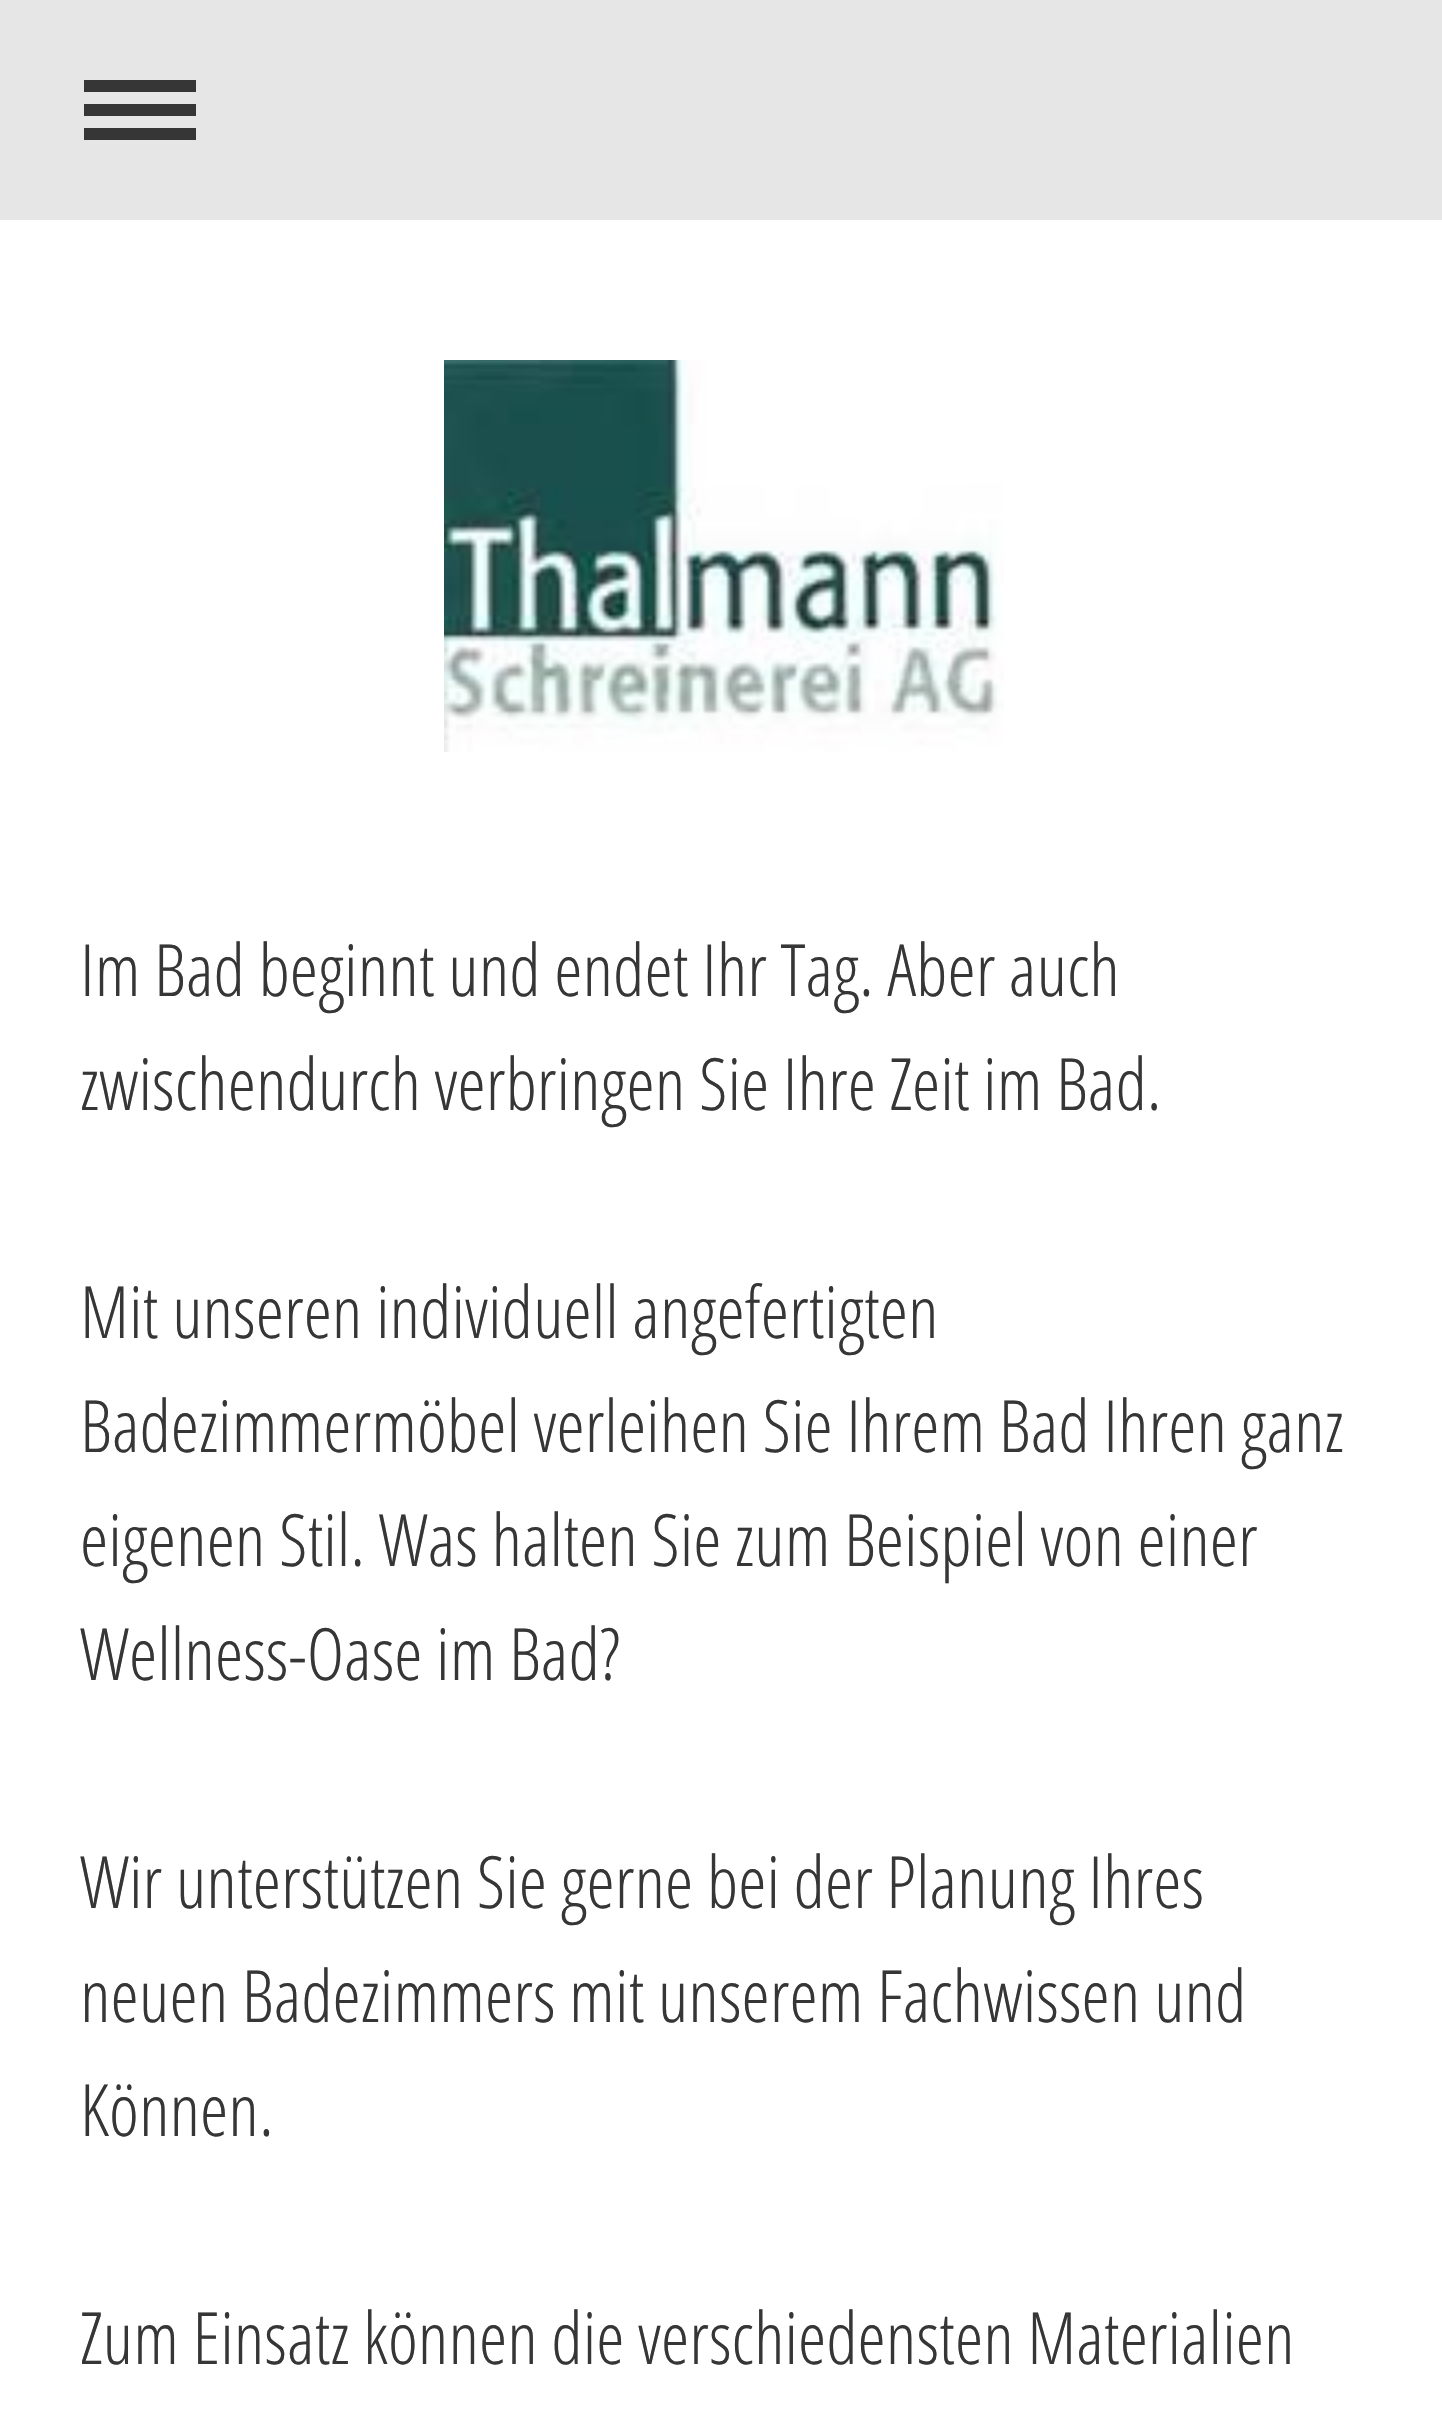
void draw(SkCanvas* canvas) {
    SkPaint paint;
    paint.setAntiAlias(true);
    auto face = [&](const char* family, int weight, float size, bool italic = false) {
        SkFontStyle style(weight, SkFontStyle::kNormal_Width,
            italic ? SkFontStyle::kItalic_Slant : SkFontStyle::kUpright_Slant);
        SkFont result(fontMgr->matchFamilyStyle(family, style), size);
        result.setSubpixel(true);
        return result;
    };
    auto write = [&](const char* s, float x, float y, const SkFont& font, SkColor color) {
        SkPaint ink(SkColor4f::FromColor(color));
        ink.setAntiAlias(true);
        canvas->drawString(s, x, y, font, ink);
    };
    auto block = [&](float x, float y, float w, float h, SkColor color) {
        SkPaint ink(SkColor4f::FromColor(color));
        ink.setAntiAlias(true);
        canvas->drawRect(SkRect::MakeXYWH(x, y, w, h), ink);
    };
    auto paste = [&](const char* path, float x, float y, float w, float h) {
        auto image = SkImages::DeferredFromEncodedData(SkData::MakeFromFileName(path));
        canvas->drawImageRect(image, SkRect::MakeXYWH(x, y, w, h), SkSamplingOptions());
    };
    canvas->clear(SK_ColorWHITE);
    block(0, 0, 1442, 220, SkColorSetRGB(230, 230, 230));
    block(84, 104, 112, 12, SkColorSetRGB(54, 54, 54));
    block(84, 80, 112, 12, SkColorSetRGB(54, 54, 54));
    block(84, 128, 112, 12, SkColorSetRGB(54, 54, 54));
    paste("pic1.png", 444, 360, 560, 392);
    auto kFont1 = face("Open Sans Condensed", 300, 72);
    write("Im Bad beginnt und endet Ihr Tag. Aber auch", 80, 996, kFont1, SkColorSetRGB(54, 54, 54));
    write("zwischendurch verbringen Sie Ihre Zeit im Bad.", 80, 1110, kFont1, SkColorSetRGB(54, 54, 54));
    write("Mit unseren individuell angefertigten", 80, 1338, kFont1, SkColorSetRGB(54, 54, 54));
    write("Badezimmermöbel verleihen Sie Ihrem Bad Ihren ganz", 80, 1452, kFont1, SkColorSetRGB(54, 54, 54));
    write("eigenen Stil. Was halten Sie zum Beispiel von einer", 80, 1566, kFont1, SkColorSetRGB(54, 54, 54));
    write("Wellness-Oase im Bad?", 80, 1680, kFont1, SkColorSetRGB(54, 54, 54));
    write("Wir unterstützen Sie gerne bei der Planung Ihres", 80, 1908, kFont1, SkColorSetRGB(54, 54, 54));
    write("neuen Badezimmers mit unserem Fachwissen und", 80, 2022, kFont1, SkColorSetRGB(54, 54, 54));
    write("Können.", 80, 2136, kFont1, SkColorSetRGB(54, 54, 54));
    write("Zum Einsatz können die verschiedensten Materialien", 80, 2364, kFont1, SkColorSetRGB(54, 54, 54));
}
